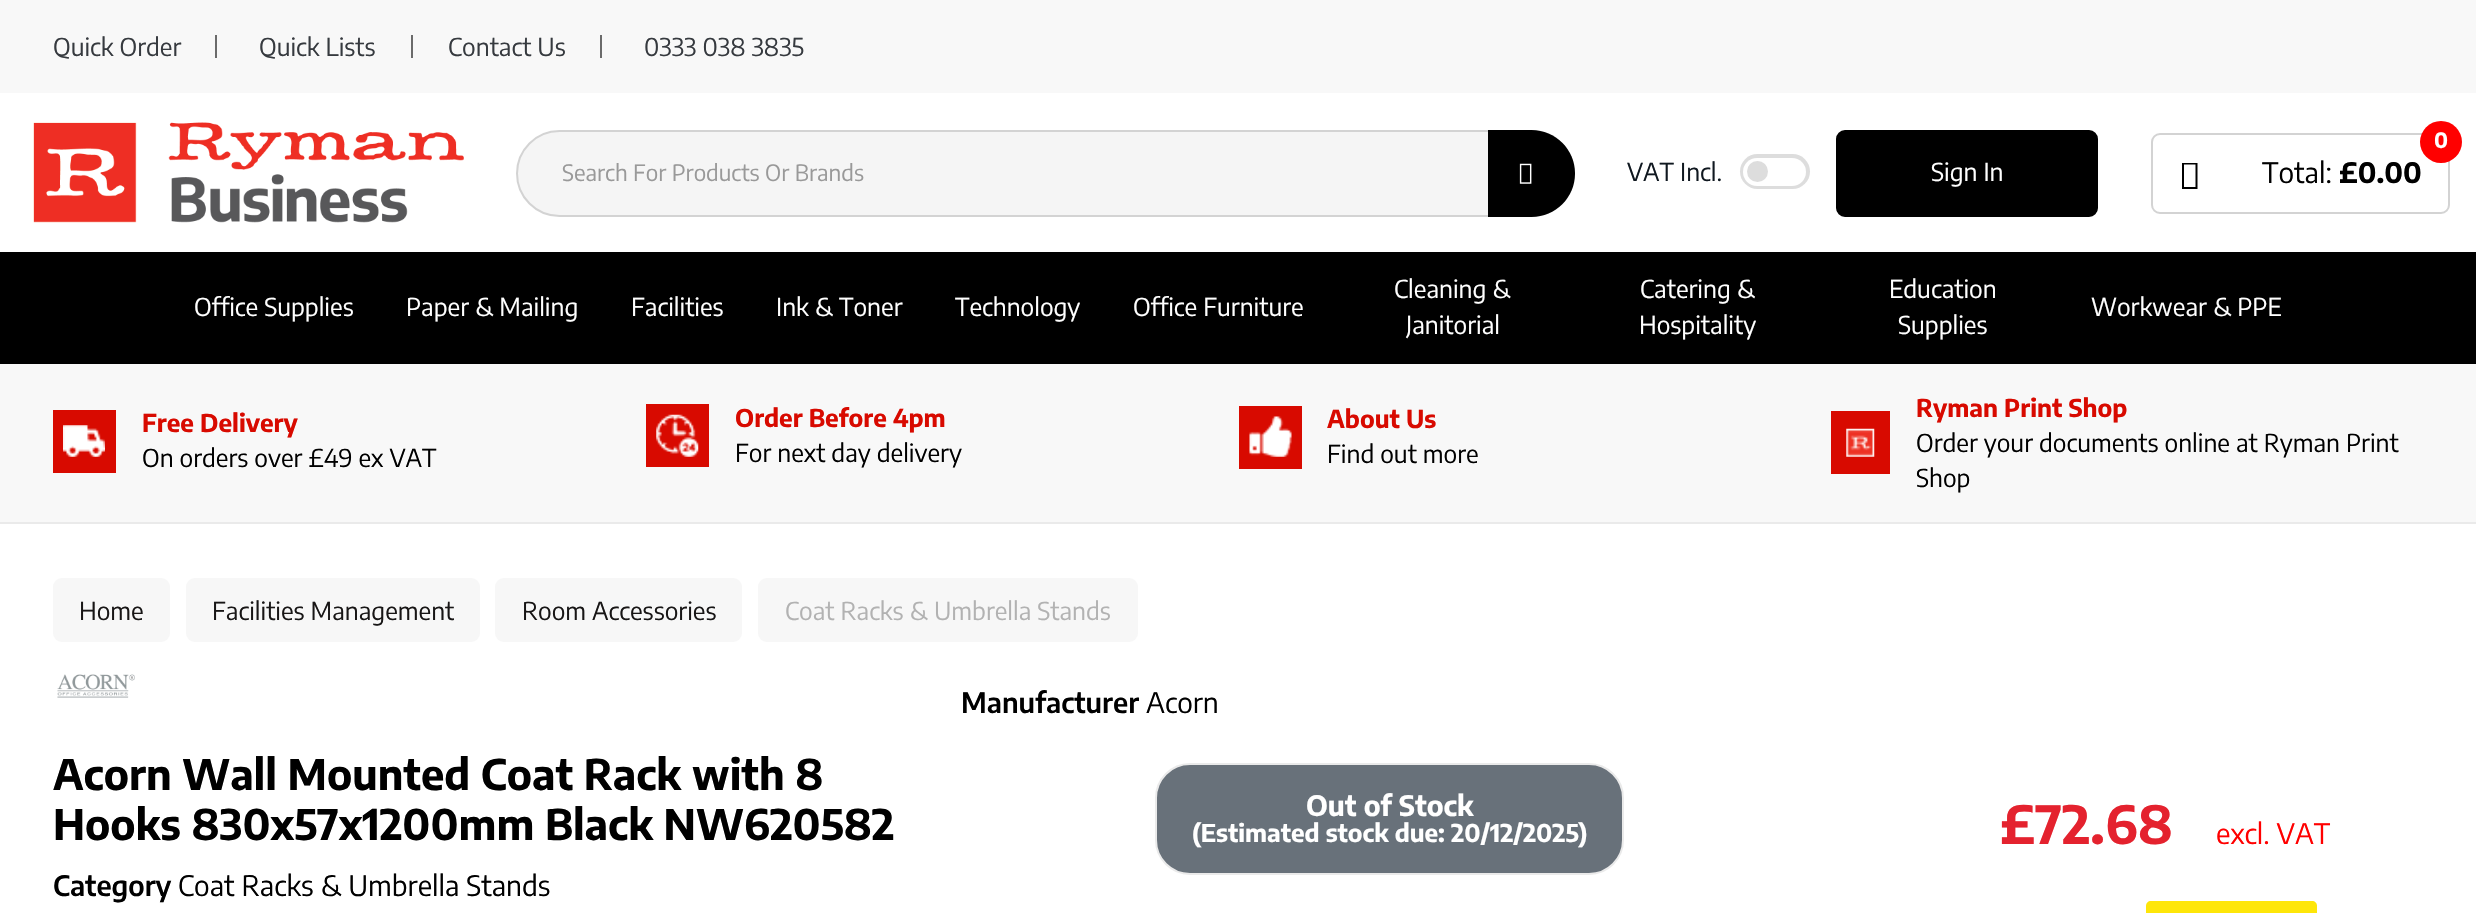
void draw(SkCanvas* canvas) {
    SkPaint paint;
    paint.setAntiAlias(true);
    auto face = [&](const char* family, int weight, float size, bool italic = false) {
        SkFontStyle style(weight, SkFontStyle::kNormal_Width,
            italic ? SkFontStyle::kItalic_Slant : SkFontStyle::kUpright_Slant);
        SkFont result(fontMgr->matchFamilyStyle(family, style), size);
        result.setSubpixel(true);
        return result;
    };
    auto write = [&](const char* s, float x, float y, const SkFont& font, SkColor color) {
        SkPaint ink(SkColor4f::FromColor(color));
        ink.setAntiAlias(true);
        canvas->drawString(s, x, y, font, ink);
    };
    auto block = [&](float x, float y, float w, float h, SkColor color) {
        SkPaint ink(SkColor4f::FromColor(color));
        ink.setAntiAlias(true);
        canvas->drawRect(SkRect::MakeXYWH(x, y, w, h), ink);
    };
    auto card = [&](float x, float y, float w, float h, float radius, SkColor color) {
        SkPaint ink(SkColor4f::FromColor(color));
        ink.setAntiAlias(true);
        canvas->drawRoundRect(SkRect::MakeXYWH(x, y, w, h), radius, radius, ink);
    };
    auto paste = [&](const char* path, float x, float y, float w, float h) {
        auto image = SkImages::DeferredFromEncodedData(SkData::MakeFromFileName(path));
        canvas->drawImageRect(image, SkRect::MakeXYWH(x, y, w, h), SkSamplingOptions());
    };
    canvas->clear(SK_ColorWHITE);
    block(0, 0, 2476, 93, SkColorSetRGB(248, 248, 248));
    block(215, 35, 2, 23, SkColorSetRGB(107, 107, 107));
    auto kFont1 = face("Encode Sans Condensed", 400, 24.5f);
    write("Quick Order", 53, 56, kFont1, SkColorSetRGB(54, 58, 63));
    block(411, 35, 2, 23, SkColorSetRGB(107, 107, 107));
    write("Quick Lists", 259, 56, kFont1, SkColorSetRGB(54, 58, 63));
    block(600, 35, 2, 23, SkColorSetRGB(107, 107, 107));
    write("Contact Us", 448, 56, kFont1, SkColorSetRGB(54, 58, 63));
    write("0333 038 3835", 644, 56, kFont1, SkColorSetRGB(54, 58, 63));
    paste("pic1.png", 33, 122, 431, 101);
    paint.setColor(SkColorSetRGB(245, 245, 245));
    canvas->drawRoundRect(SkRect::MakeXYWH(517, 131, 1057, 85), 42.5f, 42.5f, paint);
    paint.setStyle(SkPaint::kStroke_Style);
    paint.setStrokeWidth(2);
    paint.setColor(SkColorSetRGB(211, 211, 211));
    canvas->drawRoundRect(SkRect::MakeXYWH(517, 131, 1057, 85), 42.5f, 42.5f, paint);
    auto kFont2 = face("Encode Sans Condensed", 400, 22.4f);
    write("Search For Products Or Brands", 562, 181, kFont2, SkColorSetRGB(153, 153, 153));
    paint.setStyle(SkPaint::kFill_Style);
    paint.setColor(SK_ColorBLACK);
    canvas->drawPath(SkPathBuilder().moveTo(1488, 130).lineTo(1531.5f, 130).cubicTo(1555.5f, 130, 1575, 149.5f, 1575, 173.5f).cubicTo(1575, 197.5f, 1555.5f, 217, 1531.5f, 217).lineTo(1488, 217).close().detach(), paint);
    paste("pic2.png", 1519, 163, 13, 21);
    write("VAT Incl.", 1627, 181, kFont1, SkColorSetRGB(16, 24, 32));
    card(1740, 154, 70, 35, 17.5f, SkColorSetRGB(221, 221, 221));
    card(1743, 158, 63, 28, 14, SK_ColorWHITE);
    paint.setColor(SkColorSetRGB(221, 221, 221));
    canvas->drawCircle(1757.5f, 171.5f, 10.5f, paint);
    paint.setColor(SK_ColorBLACK);
    canvas->drawRoundRect(SkRect::MakeXYWH(1838, 132, 258, 83), 7, 7, paint);
    paint.setStyle(SkPaint::kStroke_Style);
    paint.setStrokeWidth(4);
    canvas->drawRoundRect(SkRect::MakeXYWH(1838, 132, 258, 83), 7, 7, paint);
    write("Sign In", 1931, 181, kFont1, SK_ColorWHITE);
    paint.setStrokeWidth(2);
    paint.setColor(SkColorSetRGB(211, 211, 211));
    canvas->drawRoundRect(SkRect::MakeXYWH(2152, 134, 297, 79), 8, 8, paint);
    auto kFont3 = face("Encode Sans Condensed", 700, 28);
    write("£0.00", 2339, 183, kFont3, SK_ColorBLACK);
    paint.setStyle(SkPaint::kFill_Style);
    paint.setColor(SkColorSetRGB(255, 0, 0));
    canvas->drawCircle(2441, 142, 21, paint);
    auto kFont4 = face("Encode Sans Condensed", 700, 21);
    write("0", 2434, 148, kFont4, SK_ColorWHITE);
    paint.setColor(SK_ColorBLACK);
    canvas->drawPath(SkPathBuilder().moveTo(2182, 189).lineTo(2182, 163).lineTo(2197.5f, 163).lineTo(2197.5f, 189).close().moveTo(2184, 187).lineTo(2195.5f, 187).lineTo(2195.5f, 164.5f).lineTo(2184, 164.5f).close().detach(), paint);
    auto kFont5 = face("Encode Sans Condensed", 400, 28);
    write("Total:", 2262, 183, kFont5, SK_ColorBLACK);
    block(0, 252, 2476, 112, SK_ColorBLACK);
    write("Office Supplies", 194, 316, kFont1, SK_ColorWHITE);
    write("Paper & Mailing", 406, 316, kFont1, SK_ColorWHITE);
    write("Facilities", 631, 316, kFont1, SK_ColorWHITE);
    write("Ink & Toner", 776, 316, kFont1, SK_ColorWHITE);
    write("Technology", 955, 316, kFont1, SK_ColorWHITE);
    write("Office Furniture", 1133, 316, kFont1, SK_ColorWHITE);
    write("Cleaning &", 1394, 298, kFont1, SK_ColorWHITE);
    write("Janitorial", 1406, 334, kFont1, SK_ColorWHITE);
    write("Catering &", 1640, 298, kFont1, SK_ColorWHITE);
    write("Hospitality", 1639, 334, kFont1, SK_ColorWHITE);
    write("Education", 1889, 298, kFont1, SK_ColorWHITE);
    write("Supplies", 1898, 334, kFont1, SK_ColorWHITE);
    write("Workwear & PPE", 2091, 316, kFont1, SK_ColorWHITE);
    block(0, 364, 2476, 158, SkColorSetRGB(248, 248, 248));
    block(0, 522, 2476, 2, SkColorSetRGB(234, 234, 234));
    block(53, 410, 63, 63, SkColorSetRGB(216, 10, 0));
    paste("pic3.png", 63, 425, 42, 32);
    auto kFont6 = face("Encode Sans Condensed", 700, 24.5f);
    write("Free Delivery", 142, 432, kFont6, SkColorSetRGB(216, 10, 0));
    write("On orders over £49 ex VAT", 142, 467, kFont1, SK_ColorBLACK);
    block(646, 404, 63, 63, SkColorSetRGB(216, 10, 0));
    paste("pic4.png", 656, 414, 43, 43);
    write("Order Before 4pm", 735, 427, kFont6, SkColorSetRGB(216, 10, 0));
    write("For next day delivery", 735, 462, kFont1, SK_ColorBLACK);
    block(1239, 406, 63, 63, SkColorSetRGB(216, 10, 0));
    paste("pic5.png", 1249, 416, 43, 41);
    write("About Us", 1327, 428, kFont6, SkColorSetRGB(216, 10, 0));
    write("Find out more", 1327, 463, kFont1, SK_ColorBLACK);
    block(1831, 411, 59, 63, SkColorSetRGB(216, 10, 0));
    paste("pic6.png", 1846, 428, 29, 29);
    write("Ryman Print Shop", 1916, 417, kFont6, SkColorSetRGB(216, 10, 0));
    write("Order your documents online at Ryman Print", 1916, 452, kFont1, SK_ColorBLACK);
    write("Shop", 1916, 487, kFont1, SK_ColorBLACK);
    card(53, 578, 117, 64, 9, SkColorSetRGB(247, 247, 247));
    write("Home", 79, 620, kFont1, SkColorSetRGB(24, 22, 22));
    card(186, 578, 294, 64, 9, SkColorSetRGB(247, 247, 247));
    write("Facilities Management", 212, 620, kFont1, SkColorSetRGB(24, 22, 22));
    card(495, 578, 247, 64, 9, SkColorSetRGB(247, 247, 247));
    write("Room Accessories", 522, 620, kFont1, SkColorSetRGB(24, 22, 22));
    card(758, 578, 380, 64, 9, SkColorSetRGB(247, 247, 247));
    write("Coat Racks & Umbrella Stands", 785, 620, kFont1, SkColorSetRGB(178, 178, 178));
    paste("pic7.png", 57, 674, 78, 24);
    auto kFont7 = face("Encode Sans Condensed", 700, 42);
    write("Acorn Wall Mounted Coat Rack with 8", 53, 790, kFont7, SK_ColorBLACK);
    write("Hooks 830x57x1200mm Black NW620582", 53, 840, kFont7, SK_ColorBLACK);
    auto kFont8 = face("Encode Sans Condensed", 600, 28);
    write("Category", 53, 896, kFont8, SK_ColorBLACK);
    write("Coat Racks & Umbrella Stands", 178, 896, kFont5, SK_ColorBLACK);
    write("Manufacturer", 961, 713, kFont8, SK_ColorBLACK);
    write("Acorn", 1146, 713, kFont5, SK_ColorBLACK);
    paint.setColor(SkColorSetRGB(104, 113, 122));
    canvas->drawRoundRect(SkRect::MakeXYWH(1156, 764, 467, 110), 34, 34, paint);
    paint.setStyle(SkPaint::kStroke_Style);
    paint.setColor(SkColorSetRGB(234, 234, 234));
    canvas->drawRoundRect(SkRect::MakeXYWH(1156, 764, 467, 110), 34, 34, paint);
    write("Out of Stock", 1306, 816, kFont3, SK_ColorWHITE);
    auto kFont9 = face("Encode Sans Condensed", 700, 24.4f);
    write("(Estimated stock due: 20/12/2025)", 1192, 842, kFont9, SK_ColorWHITE);
    auto kFont10 = face("Encode Sans Condensed", 700, 52.5f);
    write("£72.68", 2000, 844, kFont10, SkColorSetRGB(228, 34, 46));
    write("excl. VAT", 2216, 844, kFont5, SkColorSetRGB(255, 0, 0));
    paint.setStyle(SkPaint::kFill_Style);
    paint.setColor(SkColorSetRGB(254, 230, 9));
    canvas->drawPath(SkPathBuilder().moveTo(2151, 901).lineTo(2240, 901).lineTo(2240, 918).lineTo(2151, 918).cubicTo(2148, 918, 2146, 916, 2146, 913).lineTo(2146, 906).cubicTo(2146, 903, 2148, 901, 2151, 901).close().detach(), paint);
    block(2240, 901, 26, 12, SkColorSetRGB(254, 230, 9));
    canvas->drawPath(SkPathBuilder().moveTo(2266, 901).lineTo(2312, 901).cubicTo(2315, 901, 2317, 903, 2317, 906).lineTo(2317, 913).cubicTo(2317, 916, 2315, 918, 2312, 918).lineTo(2266, 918).close().detach(), paint);
}
